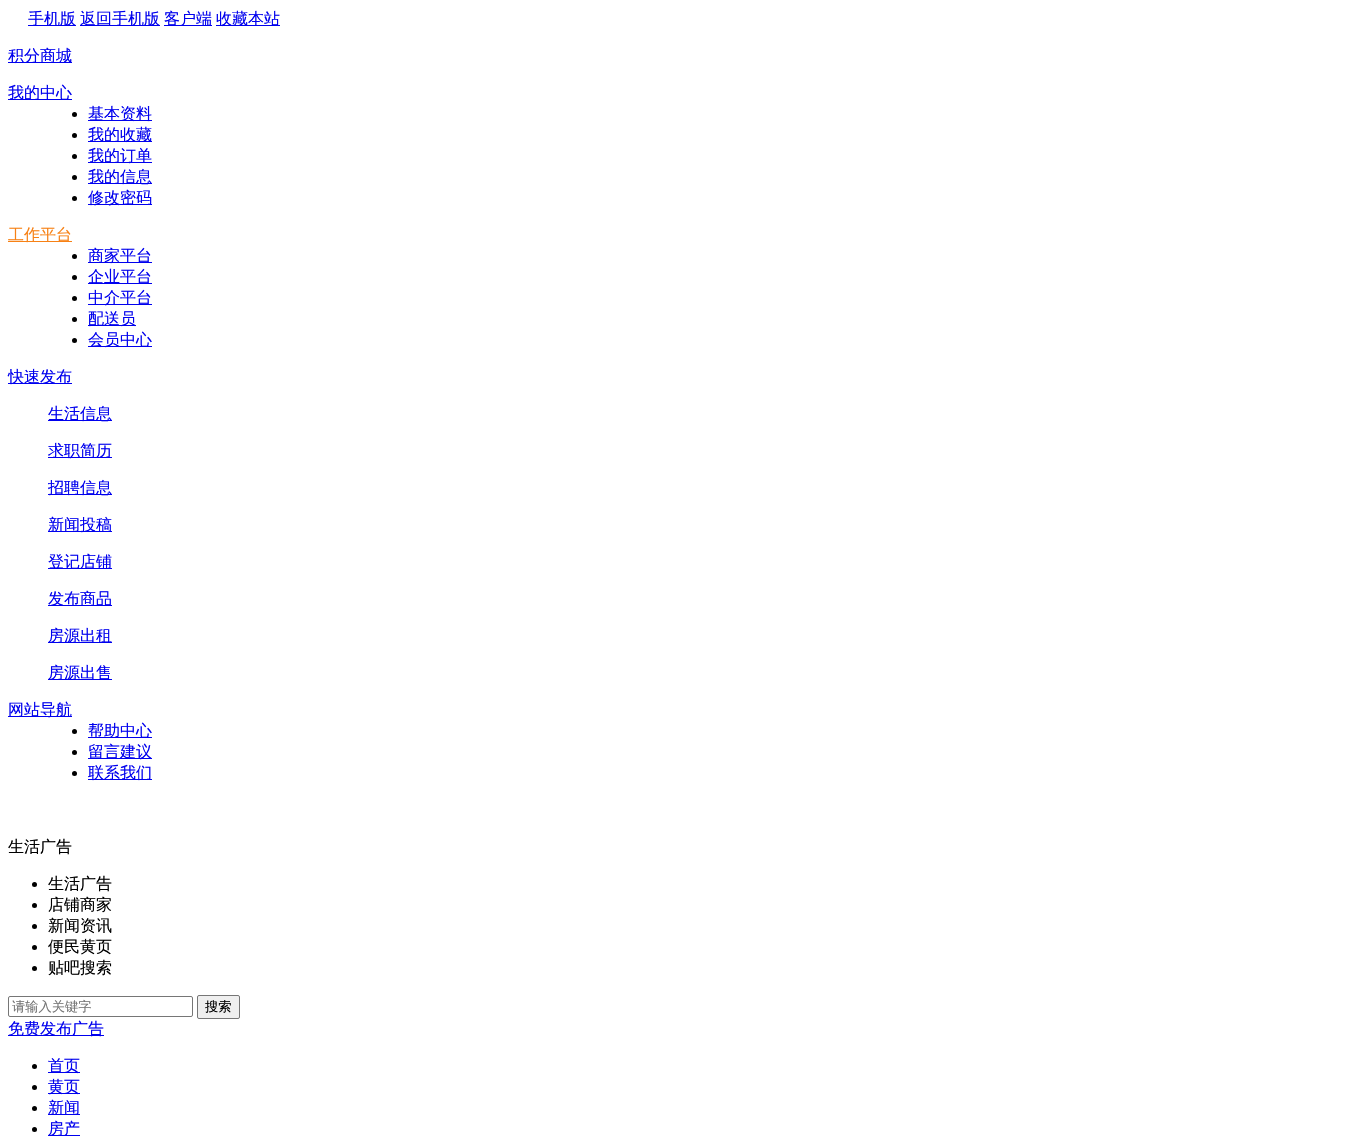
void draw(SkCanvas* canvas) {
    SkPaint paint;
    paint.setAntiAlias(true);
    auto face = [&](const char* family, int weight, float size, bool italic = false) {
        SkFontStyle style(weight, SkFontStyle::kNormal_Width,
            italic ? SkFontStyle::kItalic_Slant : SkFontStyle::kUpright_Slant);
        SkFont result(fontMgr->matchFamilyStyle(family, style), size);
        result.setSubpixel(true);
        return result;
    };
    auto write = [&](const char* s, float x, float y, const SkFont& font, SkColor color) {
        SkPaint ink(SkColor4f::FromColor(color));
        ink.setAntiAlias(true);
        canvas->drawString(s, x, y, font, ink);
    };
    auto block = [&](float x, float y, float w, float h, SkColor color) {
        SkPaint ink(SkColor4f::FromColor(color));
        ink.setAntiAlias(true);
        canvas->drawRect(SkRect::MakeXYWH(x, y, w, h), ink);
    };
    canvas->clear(SK_ColorWHITE);
    block(28, 25, 48, 1, SkColorSetRGB(0, 0, 238));
    auto kFont1 = face("WenQuanYi Zen Hei", 500, 16);
    write("手机版", 28, 24, kFont1, SkColorSetRGB(0, 0, 238));
    block(80, 25, 80, 1, SkColorSetRGB(0, 0, 238));
    write("返回手机版", 80, 24, kFont1, SkColorSetRGB(0, 0, 238));
    block(164, 25, 48, 1, SkColorSetRGB(0, 0, 238));
    write("客户端", 164, 24, kFont1, SkColorSetRGB(0, 0, 238));
    block(216, 25, 64, 1, SkColorSetRGB(0, 0, 238));
    write("收藏本站", 216, 24, kFont1, SkColorSetRGB(0, 0, 238));
    block(8, 62, 64, 1, SkColorSetRGB(0, 0, 238));
    write("积分商城", 8, 61, kFont1, SkColorSetRGB(0, 0, 238));
    block(8, 99, 64, 1, SkColorSetRGB(0, 0, 238));
    write("我的中心", 8, 98, kFont1, SkColorSetRGB(0, 0, 238));
    paint.setColor(SK_ColorBLACK);
    canvas->drawCircle(74.5f, 114.5f, 2.5f, paint);
    block(88, 120, 64, 1, SkColorSetRGB(0, 0, 238));
    write("基本资料", 88, 119, kFont1, SkColorSetRGB(0, 0, 238));
    canvas->drawCircle(74.5f, 135.5f, 2.5f, paint);
    block(88, 141, 64, 1, SkColorSetRGB(0, 0, 238));
    write("我的收藏", 88, 140, kFont1, SkColorSetRGB(0, 0, 238));
    canvas->drawCircle(74.5f, 156.5f, 2.5f, paint);
    block(88, 162, 64, 1, SkColorSetRGB(0, 0, 238));
    write("我的订单", 88, 161, kFont1, SkColorSetRGB(0, 0, 238));
    canvas->drawCircle(74.5f, 177.5f, 2.5f, paint);
    block(88, 183, 64, 1, SkColorSetRGB(0, 0, 238));
    write("我的信息", 88, 182, kFont1, SkColorSetRGB(0, 0, 238));
    canvas->drawCircle(74.5f, 198.5f, 2.5f, paint);
    block(88, 204, 64, 1, SkColorSetRGB(0, 0, 238));
    write("修改密码", 88, 203, kFont1, SkColorSetRGB(0, 0, 238));
    block(8, 241, 64, 1, SkColorSetRGB(247, 129, 21));
    write("工作平台", 8, 240, kFont1, SkColorSetRGB(247, 129, 21));
    canvas->drawCircle(74.5f, 256.5f, 2.5f, paint);
    block(88, 262, 64, 1, SkColorSetRGB(0, 0, 238));
    write("商家平台", 88, 261, kFont1, SkColorSetRGB(0, 0, 238));
    canvas->drawCircle(74.5f, 277.5f, 2.5f, paint);
    block(88, 283, 64, 1, SkColorSetRGB(0, 0, 238));
    write("企业平台", 88, 282, kFont1, SkColorSetRGB(0, 0, 238));
    canvas->drawCircle(74.5f, 298.5f, 2.5f, paint);
    block(88, 304, 64, 1, SkColorSetRGB(0, 0, 238));
    write("中介平台", 88, 303, kFont1, SkColorSetRGB(0, 0, 238));
    canvas->drawCircle(74.5f, 319.5f, 2.5f, paint);
    block(88, 325, 48, 1, SkColorSetRGB(0, 0, 238));
    write("配送员", 88, 324, kFont1, SkColorSetRGB(0, 0, 238));
    canvas->drawCircle(74.5f, 340.5f, 2.5f, paint);
    block(88, 346, 64, 1, SkColorSetRGB(0, 0, 238));
    write("会员中心", 88, 345, kFont1, SkColorSetRGB(0, 0, 238));
    block(8, 383, 64, 1, SkColorSetRGB(0, 0, 238));
    write("快速发布", 8, 382, kFont1, SkColorSetRGB(0, 0, 238));
    block(48, 420, 64, 1, SkColorSetRGB(0, 0, 238));
    write("生活信息", 48, 419, kFont1, SkColorSetRGB(0, 0, 238));
    block(48, 457, 64, 1, SkColorSetRGB(0, 0, 238));
    write("求职简历", 48, 456, kFont1, SkColorSetRGB(0, 0, 238));
    block(48, 494, 64, 1, SkColorSetRGB(0, 0, 238));
    write("招聘信息", 48, 493, kFont1, SkColorSetRGB(0, 0, 238));
    block(48, 531, 64, 1, SkColorSetRGB(0, 0, 238));
    write("新闻投稿", 48, 530, kFont1, SkColorSetRGB(0, 0, 238));
    block(48, 568, 64, 1, SkColorSetRGB(0, 0, 238));
    write("登记店铺", 48, 567, kFont1, SkColorSetRGB(0, 0, 238));
    block(48, 605, 64, 1, SkColorSetRGB(0, 0, 238));
    write("发布商品", 48, 604, kFont1, SkColorSetRGB(0, 0, 238));
    block(48, 642, 64, 1, SkColorSetRGB(0, 0, 238));
    write("房源出租", 48, 641, kFont1, SkColorSetRGB(0, 0, 238));
    block(48, 679, 64, 1, SkColorSetRGB(0, 0, 238));
    write("房源出售", 48, 678, kFont1, SkColorSetRGB(0, 0, 238));
    block(8, 716, 64, 1, SkColorSetRGB(0, 0, 238));
    write("网站导航", 8, 715, kFont1, SkColorSetRGB(0, 0, 238));
    canvas->drawCircle(74.5f, 731.5f, 2.5f, paint);
    block(88, 737, 64, 1, SkColorSetRGB(0, 0, 238));
    write("帮助中心", 88, 736, kFont1, SkColorSetRGB(0, 0, 238));
    canvas->drawCircle(74.5f, 752.5f, 2.5f, paint);
    block(88, 758, 64, 1, SkColorSetRGB(0, 0, 238));
    write("留言建议", 88, 757, kFont1, SkColorSetRGB(0, 0, 238));
    canvas->drawCircle(74.5f, 773.5f, 2.5f, paint);
    block(88, 779, 64, 1, SkColorSetRGB(0, 0, 238));
    write("联系我们", 88, 778, kFont1, SkColorSetRGB(0, 0, 238));
    write("生活广告", 8, 852, kFont1, SK_ColorBLACK);
    canvas->drawCircle(34.5f, 884.5f, 2.5f, paint);
    write("生活广告", 48, 889, kFont1, SK_ColorBLACK);
    canvas->drawCircle(34.5f, 905.5f, 2.5f, paint);
    write("店铺商家", 48, 910, kFont1, SK_ColorBLACK);
    canvas->drawCircle(34.5f, 926.5f, 2.5f, paint);
    write("新闻资讯", 48, 931, kFont1, SK_ColorBLACK);
    canvas->drawCircle(34.5f, 947.5f, 2.5f, paint);
    write("便民黄页", 48, 952, kFont1, SK_ColorBLACK);
    canvas->drawCircle(34.5f, 968.5f, 2.5f, paint);
    write("贴吧搜索", 48, 973, kFont1, SK_ColorBLACK);
    paint.setStyle(SkPaint::kStroke_Style);
    paint.setStrokeWidth(1);
    paint.setColor(SkColorSetRGB(118, 118, 118));
    canvas->drawRoundRect(SkRect::MakeXYWH(8.5f, 996.5f, 184, 20), 1.5f, 1.5f, paint);
    auto kFont2 = face("WenQuanYi Zen Hei", 500, 13.25f);
    write("请输入关键字", 12, 1011, kFont2, SkColorSetRGB(117, 117, 117));
    paint.setStyle(SkPaint::kFill_Style);
    paint.setColor(SkColorSetRGB(239, 239, 239));
    canvas->drawRoundRect(SkRect::MakeXYWH(197.5f, 995.5f, 42, 23), 1.5f, 1.5f, paint);
    paint.setStyle(SkPaint::kStroke_Style);
    paint.setColor(SkColorSetRGB(118, 118, 118));
    canvas->drawRoundRect(SkRect::MakeXYWH(197.5f, 995.5f, 42, 23), 1.5f, 1.5f, paint);
    write("搜索", 205, 1011, kFont2, SK_ColorBLACK);
    block(8, 1035, 96, 1, SkColorSetRGB(0, 0, 238));
    write("免费发布广告", 8, 1034, kFont1, SkColorSetRGB(0, 0, 238));
    paint.setStyle(SkPaint::kFill_Style);
    paint.setColor(SK_ColorBLACK);
    canvas->drawCircle(34.5f, 1066.5f, 2.5f, paint);
    block(48, 1072, 32, 1, SkColorSetRGB(0, 0, 238));
    write("首页", 48, 1071, kFont1, SkColorSetRGB(0, 0, 238));
    canvas->drawCircle(34.5f, 1087.5f, 2.5f, paint);
    block(48, 1093, 32, 1, SkColorSetRGB(0, 0, 238));
    write("黄页", 48, 1092, kFont1, SkColorSetRGB(0, 0, 238));
    canvas->drawCircle(34.5f, 1108.5f, 2.5f, paint);
    block(48, 1114, 32, 1, SkColorSetRGB(0, 0, 238));
    write("新闻", 48, 1113, kFont1, SkColorSetRGB(0, 0, 238));
    canvas->drawCircle(34.5f, 1129.5f, 2.5f, paint);
    block(48, 1135, 32, 1, SkColorSetRGB(0, 0, 238));
    write("房产", 48, 1134, kFont1, SkColorSetRGB(0, 0, 238));
}
